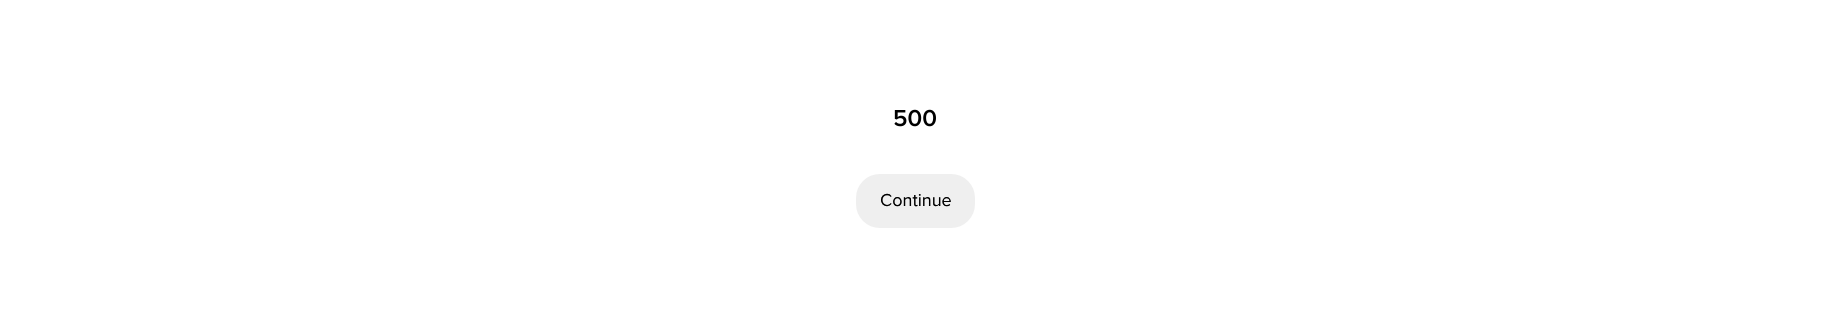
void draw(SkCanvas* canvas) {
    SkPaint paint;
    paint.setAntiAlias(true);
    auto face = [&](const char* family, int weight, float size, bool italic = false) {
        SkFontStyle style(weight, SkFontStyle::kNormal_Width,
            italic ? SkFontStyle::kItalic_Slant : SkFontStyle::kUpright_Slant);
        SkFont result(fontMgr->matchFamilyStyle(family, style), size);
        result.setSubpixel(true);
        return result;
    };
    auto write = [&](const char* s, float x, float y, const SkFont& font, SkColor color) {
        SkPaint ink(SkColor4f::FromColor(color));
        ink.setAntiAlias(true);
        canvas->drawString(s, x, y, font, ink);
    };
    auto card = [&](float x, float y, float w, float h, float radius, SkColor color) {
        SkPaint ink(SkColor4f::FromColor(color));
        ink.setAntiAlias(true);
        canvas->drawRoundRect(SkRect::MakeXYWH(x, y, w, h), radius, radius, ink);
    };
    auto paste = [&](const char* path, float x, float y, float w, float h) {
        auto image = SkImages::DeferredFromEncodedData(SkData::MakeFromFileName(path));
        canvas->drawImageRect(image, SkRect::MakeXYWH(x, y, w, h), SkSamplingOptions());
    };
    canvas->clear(SK_ColorWHITE);
    paste("pic1.png", 894, 109, 42, 18);
    card(856, 174, 119, 54, 24, SkColorSetRGB(239, 239, 239));
    auto kFont1 = face("Proxima Nova", 400, 18);
    write("Continue", 880, 206, kFont1, SK_ColorBLACK);
}
